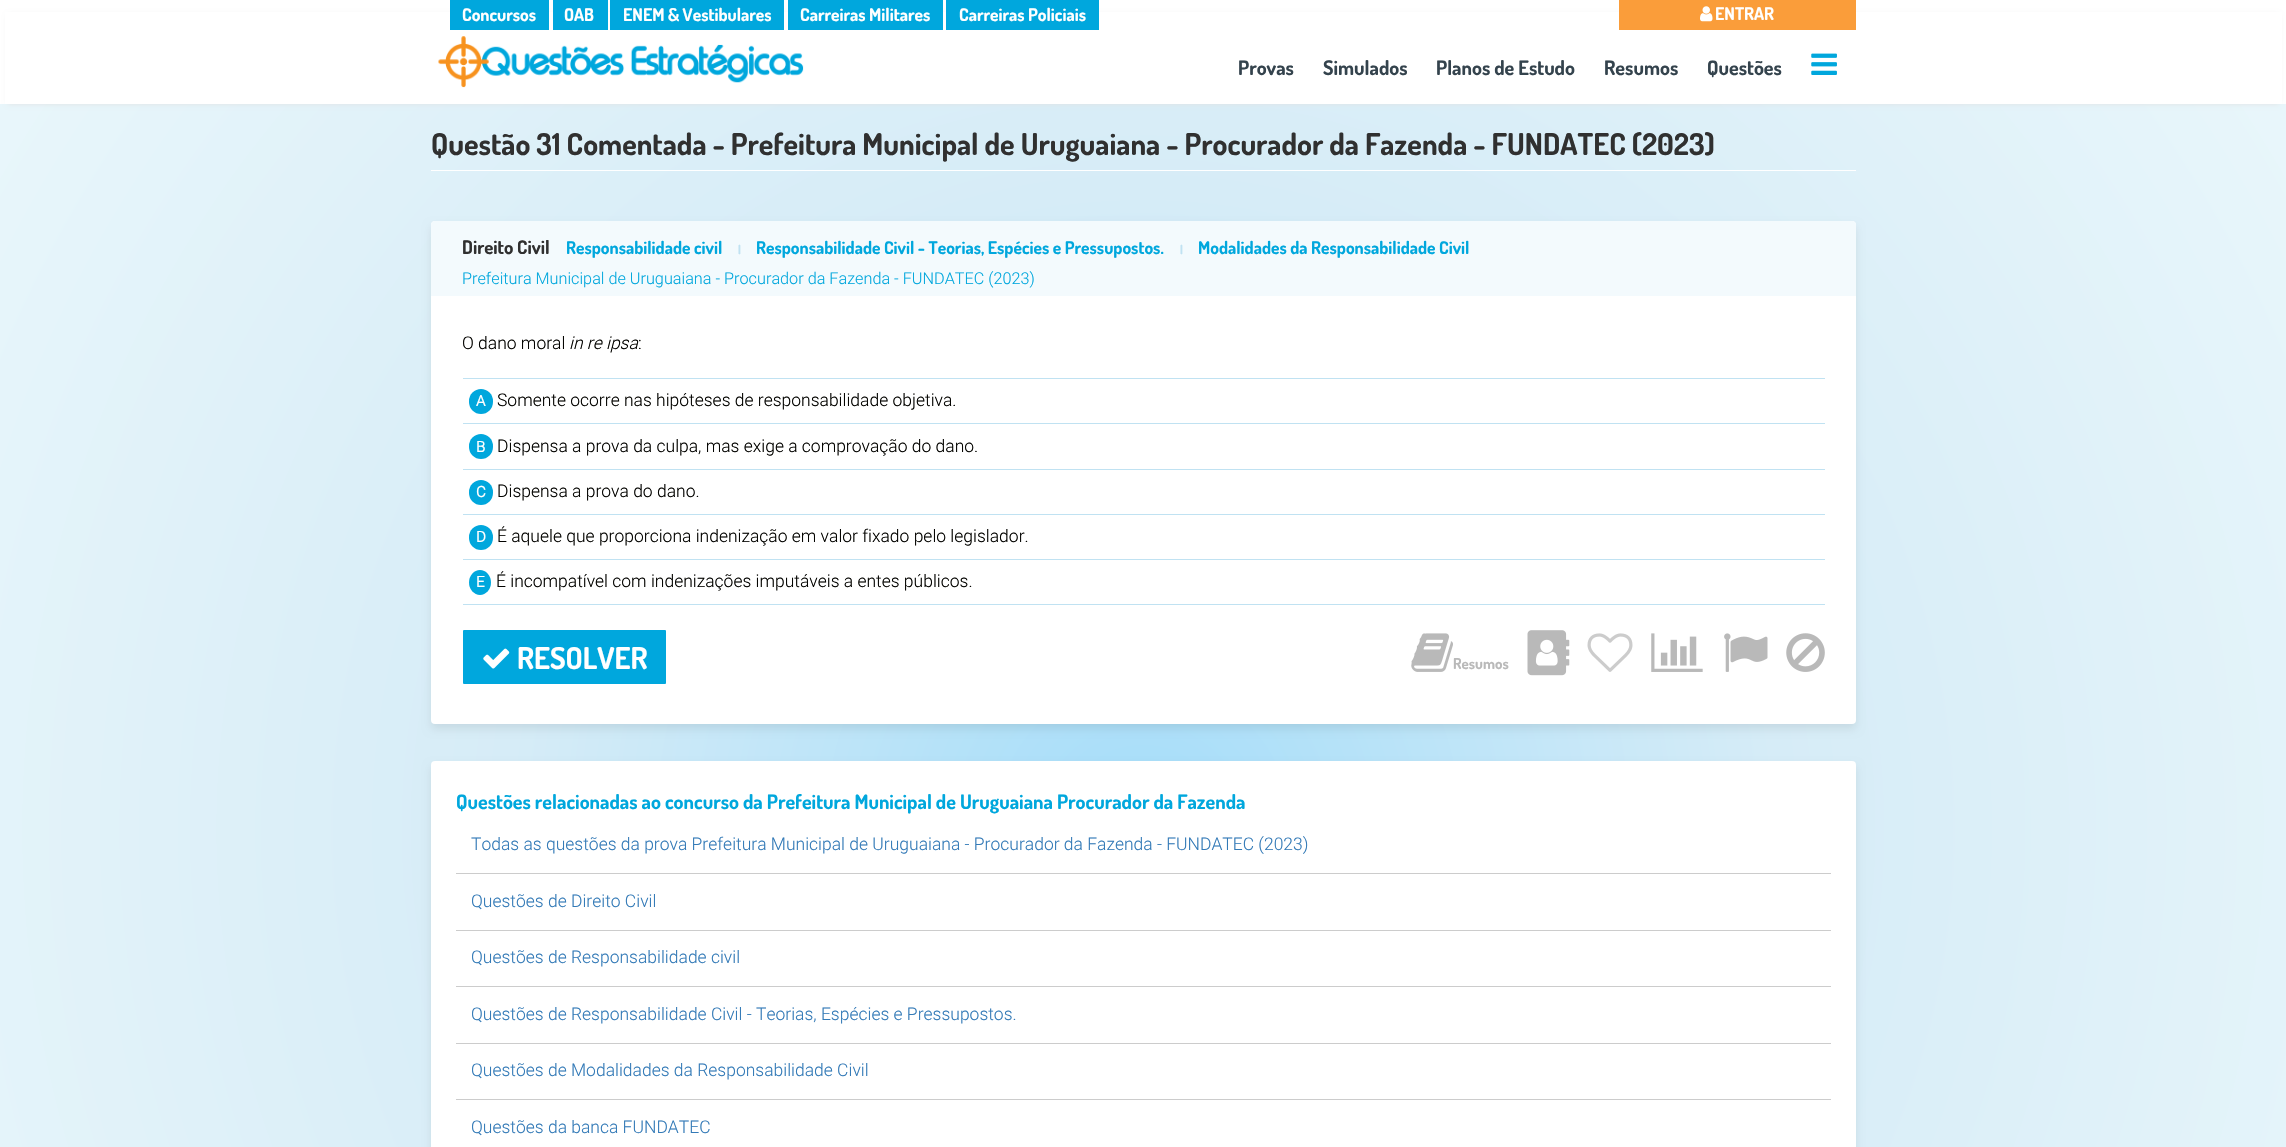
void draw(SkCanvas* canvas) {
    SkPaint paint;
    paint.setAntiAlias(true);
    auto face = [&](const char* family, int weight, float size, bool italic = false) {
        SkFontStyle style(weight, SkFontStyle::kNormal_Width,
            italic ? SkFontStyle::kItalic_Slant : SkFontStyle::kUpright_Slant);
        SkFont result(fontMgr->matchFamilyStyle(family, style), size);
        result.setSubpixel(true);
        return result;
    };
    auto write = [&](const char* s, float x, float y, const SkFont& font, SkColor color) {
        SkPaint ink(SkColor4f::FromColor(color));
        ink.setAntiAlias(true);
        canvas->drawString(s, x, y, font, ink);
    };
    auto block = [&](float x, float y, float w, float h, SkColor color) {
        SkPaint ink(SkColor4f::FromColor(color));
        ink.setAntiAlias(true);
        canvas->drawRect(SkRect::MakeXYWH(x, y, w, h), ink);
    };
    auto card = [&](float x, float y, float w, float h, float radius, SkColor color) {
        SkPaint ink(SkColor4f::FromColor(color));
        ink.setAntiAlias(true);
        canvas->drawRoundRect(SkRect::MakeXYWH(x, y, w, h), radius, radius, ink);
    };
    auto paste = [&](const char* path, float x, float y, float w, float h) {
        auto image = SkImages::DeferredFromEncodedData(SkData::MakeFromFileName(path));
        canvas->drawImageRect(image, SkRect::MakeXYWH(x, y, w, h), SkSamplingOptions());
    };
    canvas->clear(SK_ColorWHITE);
    {
        const SkColor colors[] = {SkColorSetRGB(165, 221, 249), SkColorSetRGB(214, 236, 247), SkColorSetRGB(234, 247, 251)};
        const float stops[] = {0, 0.45f, 1};
        paint.setShader(SkGradientShader::MakeRadial({1143, 829}, 1412, colors, stops, 3, SkTileMode::kClamp));
        paint.setAlpha(255);
    }
    canvas->drawRect(SkRect::MakeXYWH(0, 104, 2286, 1043), paint);
    paint.setShader(nullptr);
    paint.setColor(SkColorSetRGB(226, 227, 228));
    paint.setMaskFilter(SkMaskFilter::MakeBlur(kNormal_SkBlurStyle, 2.5f));
    canvas->drawRect(SkRect::MakeXYWH(8, 15, 2271, 89), paint);
    paint.setMaskFilter(nullptr);
    block(5, 12, 2277, 92, SK_ColorWHITE);
    block(450, 0, 99, 30, SkColorSetRGB(0, 167, 221));
    auto kFont1 = face("Dosis", 200, 17.5f);
    write("Concursos", 462, 21, kFont1, SK_ColorWHITE);
    block(553, 0, 55, 30, SkColorSetRGB(0, 167, 221));
    write("OAB", 564, 21, kFont1, SK_ColorWHITE);
    block(610, 0, 174, 30, SkColorSetRGB(0, 167, 221));
    write("ENEM & Vestibulares", 623, 21, kFont1, SK_ColorWHITE);
    block(788, 0, 155, 30, SkColorSetRGB(0, 167, 221));
    write("Carreiras Militares", 800, 21, kFont1, SK_ColorWHITE);
    block(946, 0, 153, 30, SkColorSetRGB(0, 167, 221));
    write("Carreiras Policiais", 959, 21, kFont1, SK_ColorWHITE);
    block(1619, 0, 237, 30, SkColorSetRGB(250, 157, 58));
    paste("pic1.png", 1700, 6, 13, 16);
    write("ENTRAR", 1715, 20, kFont1, SK_ColorWHITE);
    paste("pic2.png", 438, 36, 366, 52);
    auto kFont2 = face("Dosis", 200, 20);
    write("Provas", 1238, 75, kFont2, SkColorSetRGB(52, 67, 77));
    write("Simulados", 1323, 75, kFont2, SkColorSetRGB(52, 67, 77));
    write("Planos de Estudo", 1436, 75, kFont2, SkColorSetRGB(52, 67, 77));
    write("Resumos", 1604, 75, kFont2, SkColorSetRGB(52, 67, 77));
    write("Questões", 1707, 75, kFont2, SkColorSetRGB(52, 67, 77));
    paste("pic3.png", 1811, 53, 26, 22);
    block(431, 170, 1425, 1, SK_ColorWHITE);
    auto kFont3 = face("Dosis", 200, 30);
    write("Questão 31 Comentada - Prefeitura Municipal de Uruguaiana - Procurador da Fazenda - FUNDATEC (2023)", 431, 155, kFont3, SkColorSetRGB(48, 48, 48));
    paint.setColor(SkColorSetARGB(20, 0, 0, 0));
    paint.setMaskFilter(SkMaskFilter::MakeBlur(kNormal_SkBlurStyle, 4));
    canvas->drawRoundRect(SkRect::MakeXYWH(431, 226, 1425, 503), 4, 4, paint);
    paint.setMaskFilter(nullptr);
    card(431, 221, 1425, 503, 4, SK_ColorWHITE);
    paint.setColor(SkColorSetRGB(243, 250, 253));
    canvas->drawPath(SkPathBuilder().moveTo(435, 221).lineTo(1852, 221).cubicTo(1854, 221, 1856, 223, 1856, 225).lineTo(1856, 296).lineTo(431, 296).lineTo(431, 225).cubicTo(431, 223, 433, 221, 435, 221).close().detach(), paint);
    auto kFont4 = face("Dosis", 200, 18.75f);
    write("Direito Civil", 462, 254, kFont4, SkColorSetRGB(48, 48, 48));
    write("Responsabilidade civil", 566, 254, kFont1, SkColorSetRGB(0, 167, 221));
    auto kFont5 = face("Dosis", 200, 12);
    write("|", 738, 254, kFont5, SkColorSetRGB(192, 226, 242));
    write("Responsabilidade Civil - Teorias, Espécies e Pressupostos.", 756, 254, kFont1, SkColorSetRGB(0, 167, 221));
    write("|", 1180, 254, kFont5, SkColorSetRGB(192, 226, 242));
    write("Modalidades da Responsabilidade Civil", 1198, 254, kFont1, SkColorSetRGB(0, 167, 221));
    auto kFont6 = face("Roboto", 300, 16.25f);
    write("Prefeitura Municipal de Uruguaiana - Procurador da Fazenda - FUNDATEC (2023)", 462, 284, kFont6, SkColorSetRGB(0, 167, 221));
    auto kFont7 = face("Roboto", 300, 17.5f);
    write("O dano moral", 462, 349, kFont7, SkColorSetRGB(3, 3, 0));
    auto kFont8 = face("Roboto", 300, 17.5f, true);
    write("in re ipsa", 569, 349, kFont8, SkColorSetRGB(3, 3, 0));
    write(":", 638, 349, kFont7, SkColorSetRGB(3, 3, 0));
    block(463, 378, 1362, 1, SkColorSetRGB(192, 226, 242));
    block(463, 423, 1362, 1, SkColorSetRGB(192, 226, 242));
    card(469, 389, 24, 25, 12, SkColorSetRGB(0, 167, 221));
    auto kFont9 = face("Roboto", 700, 15);
    write("A", 476, 406, kFont9, SK_ColorWHITE);
    write("Somente ocorre nas hipóteses de responsabilidade objetiva.", 497, 406, kFont7, SkColorSetRGB(3, 3, 0));
    block(463, 469, 1362, 1, SkColorSetRGB(192, 226, 242));
    card(469, 434, 24, 25, 12, SkColorSetRGB(0, 167, 221));
    write("B", 476, 452, kFont9, SK_ColorWHITE);
    write("Dispensa a prova da culpa, mas exige a comprovação do dano.", 497, 452, kFont7, SkColorSetRGB(3, 3, 0));
    block(463, 514, 1362, 1, SkColorSetRGB(192, 226, 242));
    card(469, 480, 24, 25, 12, SkColorSetRGB(0, 167, 221));
    write("C", 476, 497, kFont9, SK_ColorWHITE);
    write("Dispensa a prova do dano.", 497, 497, kFont7, SkColorSetRGB(3, 3, 0));
    block(463, 559, 1362, 1, SkColorSetRGB(192, 226, 242));
    card(469, 525, 24, 25, 12, SkColorSetRGB(0, 167, 221));
    write("D", 476, 542, kFont9, SK_ColorWHITE);
    write("É aquele que proporciona indenização em valor fixado pelo legislador.", 497, 542, kFont7, SkColorSetRGB(3, 3, 0));
    block(463, 604, 1362, 1, SkColorSetRGB(192, 226, 242));
    paint.setColor(SkColorSetRGB(0, 167, 221));
    canvas->drawOval(SkRect::MakeXYWH(469, 570, 22, 25), paint);
    write("E", 476, 587, kFont9, SK_ColorWHITE);
    write("É incompatível com indenizações imputáveis a entes públicos.", 496, 587, kFont7, SkColorSetRGB(3, 3, 0));
    card(463, 630, 203, 54, 1, SkColorSetRGB(0, 167, 221));
    paste("pic4.png", 483, 648, 27, 21);
    write("RESOLVER", 517, 669, kFont3, SK_ColorWHITE);
    paste("pic5.png", 1411, 633, 42, 39);
    auto kFont10 = face("Dosis", 200, 15);
    write("Resumos", 1453, 669, kFont10, SkColorSetRGB(185, 185, 185));
    paste("pic6.png", 1527, 630, 43, 46);
    paste("pic7.png", 1587, 633, 46, 39);
    paste("pic8.png", 1651, 633, 52, 39);
    paste("pic9.png", 1724, 633, 44, 39);
    paste("pic10.png", 1786, 633, 39, 39);
    paint.setColor(SkColorSetARGB(20, 0, 0, 0));
    paint.setMaskFilter(SkMaskFilter::MakeBlur(kNormal_SkBlurStyle, 4));
    canvas->drawRoundRect(SkRect::MakeXYWH(431, 766, 1425, 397), 4, 4, paint);
    paint.setMaskFilter(nullptr);
    card(431, 761, 1425, 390, 4, SK_ColorWHITE);
    write("Questões relacionadas ao concurso da Prefeitura Municipal de Uruguaiana Procurador da Fazenda", 456, 809, kFont2, SkColorSetRGB(0, 167, 221));
    block(456, 873, 1375, 1, SkColorSetRGB(204, 204, 204));
    write("Todas as questões da prova Prefeitura Municipal de Uruguaiana - Procurador da Fazenda - FUNDATEC (2023)", 471, 850, kFont7, SkColorSetRGB(51, 122, 183));
    block(456, 930, 1375, 1, SkColorSetRGB(204, 204, 204));
    write("Questões de Direito Civil", 471, 907, kFont7, SkColorSetRGB(51, 122, 183));
    block(456, 986, 1375, 1, SkColorSetRGB(204, 204, 204));
    write("Questões de Responsabilidade civil", 471, 963, kFont7, SkColorSetRGB(51, 122, 183));
    block(456, 1043, 1375, 1, SkColorSetRGB(204, 204, 204));
    write("Questões de Responsabilidade Civil - Teorias, Espécies e Pressupostos.", 471, 1020, kFont7, SkColorSetRGB(51, 122, 183));
    block(456, 1099, 1375, 1, SkColorSetRGB(204, 204, 204));
    write("Questões de Modalidades da Responsabilidade Civil", 471, 1076, kFont7, SkColorSetRGB(51, 122, 183));
    write("Questões da banca FUNDATEC", 471, 1133, kFont7, SkColorSetRGB(51, 122, 183));
}
